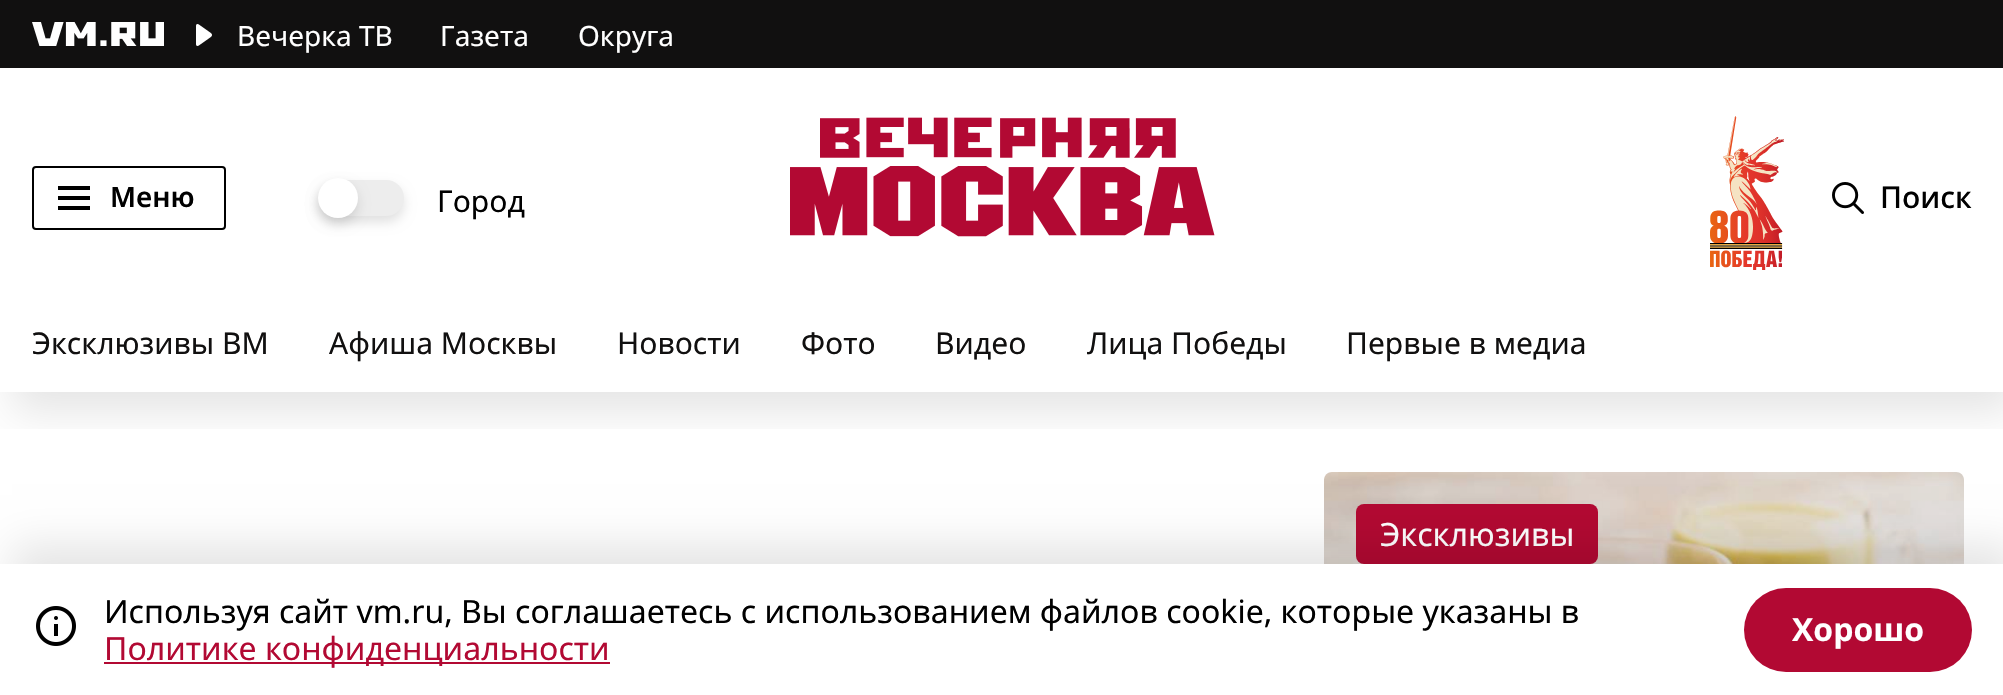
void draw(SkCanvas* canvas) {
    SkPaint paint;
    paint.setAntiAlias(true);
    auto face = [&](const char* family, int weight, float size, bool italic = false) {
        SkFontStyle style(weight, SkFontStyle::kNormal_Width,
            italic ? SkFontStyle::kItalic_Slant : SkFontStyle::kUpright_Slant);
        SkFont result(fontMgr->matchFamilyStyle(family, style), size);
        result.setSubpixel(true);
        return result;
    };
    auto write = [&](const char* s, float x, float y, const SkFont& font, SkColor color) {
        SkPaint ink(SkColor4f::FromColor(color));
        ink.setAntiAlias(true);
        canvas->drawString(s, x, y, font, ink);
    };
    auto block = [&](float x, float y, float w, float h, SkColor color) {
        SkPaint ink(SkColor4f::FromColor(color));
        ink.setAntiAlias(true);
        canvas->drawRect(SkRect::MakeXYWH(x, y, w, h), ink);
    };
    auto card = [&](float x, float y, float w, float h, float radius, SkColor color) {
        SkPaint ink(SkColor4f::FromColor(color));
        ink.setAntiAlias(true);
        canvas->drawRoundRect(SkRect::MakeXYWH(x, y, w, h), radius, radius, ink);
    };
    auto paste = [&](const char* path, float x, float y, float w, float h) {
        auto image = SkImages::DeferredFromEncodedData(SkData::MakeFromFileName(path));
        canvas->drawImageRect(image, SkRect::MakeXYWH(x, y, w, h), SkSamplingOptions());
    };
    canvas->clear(SK_ColorWHITE);
    block(0, 0, 2003, 68, SkColorSetRGB(17, 16, 16));
    paste("pic1.png", 32, 22, 132, 24);
    paste("pic2.png", 196, 24, 16, 22);
    auto kFont1 = face("Noto Sans", 400, 28);
    write("Вечерка ТВ", 237, 46, kFont1, SK_ColorWHITE);
    write("Газета", 440, 46, kFont1, SK_ColorWHITE);
    write("Округа", 578, 46, kFont1, SK_ColorWHITE);
    paste("pic6.png", 1324, 472, 640, 92);
    paint.setColor(SkColorSetARGB(26, 0, 0, 0));
    canvas->drawPath(SkPathBuilder().moveTo(1332, 472).lineTo(1956, 472).cubicTo(1960.5f, 472, 1964, 475.5f, 1964, 480).lineTo(1964, 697).cubicTo(1964, 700.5f, 1961.5f, 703, 1958, 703).lineTo(1330, 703).cubicTo(1326.5f, 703, 1324, 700.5f, 1324, 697).lineTo(1324, 480).cubicTo(1324, 475.5f, 1327.5f, 472, 1332, 472).close().detach(), paint);
    canvas->save();
    canvas->clipRect(SkRect::MakeXYWH(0, 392, 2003, 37));
    paint.setMaskFilter(SkMaskFilter::MakeBlur(kNormal_SkBlurStyle, 20));
    canvas->drawRect(SkRect::MakeXYWH(12, 88, 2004, 324), paint);
    paint.setMaskFilter(nullptr);
    canvas->restore();
    paint.setStyle(SkPaint::kStroke_Style);
    paint.setStrokeWidth(2);
    paint.setColor(SK_ColorBLACK);
    canvas->drawRoundRect(SkRect::MakeXYWH(33, 167, 192, 62), 3, 3, paint);
    block(58, 196, 32, 4, SK_ColorBLACK);
    block(58, 186, 32, 4, SK_ColorBLACK);
    block(58, 206, 32, 4, SK_ColorBLACK);
    auto kFont2 = face("Noto Sans", 600, 28);
    write("Меню", 110, 207, kFont2, SK_ColorBLACK);
    paint.setStyle(SkPaint::kFill_Style);
    paint.setColor(SkColorSetARGB(31, 0, 0, 0));
    paint.setMaskFilter(SkMaskFilter::MakeBlur(kNormal_SkBlurStyle, 6));
    canvas->drawRoundRect(SkRect::MakeXYWH(318, 186, 86, 36), 18, 18, paint);
    paint.setMaskFilter(nullptr);
    card(318, 180, 86, 36, 18, SkColorSetRGB(237, 237, 237));
    paint.setMaskFilter(SkMaskFilter::MakeBlur(kNormal_SkBlurStyle, 6));
    canvas->drawRoundRect(SkRect::MakeXYWH(318, 184, 40, 40), 20, 20, paint);
    paint.setMaskFilter(nullptr);
    paint.setColor(SK_ColorWHITE);
    canvas->drawCircle(338, 198, 20, paint);
    auto kFont3 = face("Noto Sans", 400, 30);
    write("Город", 437, 212, kFont3, SK_ColorBLACK);
    paste("pic3.png", 790, 117, 425, 120);
    paste("pic4.png", 1710, 116, 74, 154);
    paste("pic5.png", 1832, 182, 32, 32);
    auto kFont4 = face("Noto Sans", 500, 30);
    write("Поиск", 1880, 208, kFont4, SK_ColorBLACK);
    write("Эксклюзивы ВМ", 32, 354, kFont3, SkColorSetRGB(17, 16, 16));
    write("Афиша Москвы", 329, 354, kFont3, SkColorSetRGB(17, 16, 16));
    write("Новости", 617, 354, kFont3, SkColorSetRGB(17, 16, 16));
    write("Фото", 801, 354, kFont3, SkColorSetRGB(17, 16, 16));
    write("Видео", 935, 354, kFont3, SkColorSetRGB(17, 16, 16));
    write("Лица Победы", 1087, 354, kFont3, SkColorSetRGB(17, 16, 16));
    write("Первые в медиа", 1346, 354, kFont3, SkColorSetRGB(17, 16, 16));
    card(1356, 504, 242, 60, 8, SkColorSetRGB(178, 9, 50));
    auto kFont5 = face("Noto Sans", 400, 32);
    write("Эксклюзивы", 1380, 546, kFont5, SK_ColorWHITE);
    paint.setColor(SkColorSetARGB(26, 0, 0, 0));
    paint.setMaskFilter(SkMaskFilter::MakeBlur(kNormal_SkBlurStyle, 20));
    canvas->drawRect(SkRect::MakeXYWH(12, 544, 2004, 132), paint);
    paint.setMaskFilter(nullptr);
    block(0, 564, 2003, 131, SK_ColorWHITE);
    paste("pic7.png", 36, 606, 40, 40);
    write("Используя сайт vm.ru, Вы соглашаетесь с использованием файлов cookie, которые указаны в", 104, 623, kFont5, SK_ColorBLACK);
    block(104, 662, 506, 2, SkColorSetRGB(178, 9, 51));
    write("Политике конфиденциальности", 104, 660, kFont5, SkColorSetRGB(178, 9, 51));
    card(1744, 588, 228, 84, 42, SkColorSetRGB(178, 9, 51));
    auto kFont6 = face("Noto Sans", 700, 32);
    write("Хорошо", 1792, 641, kFont6, SK_ColorWHITE);
}
